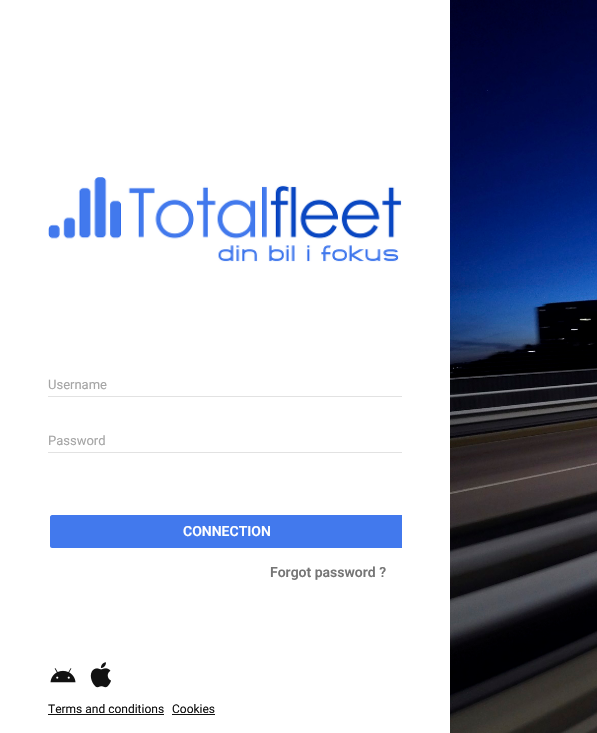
void draw(SkCanvas* canvas) {
    SkPaint paint;
    paint.setAntiAlias(true);
    auto face = [&](const char* family, int weight, float size, bool italic = false) {
        SkFontStyle style(weight, SkFontStyle::kNormal_Width,
            italic ? SkFontStyle::kItalic_Slant : SkFontStyle::kUpright_Slant);
        SkFont result(fontMgr->matchFamilyStyle(family, style), size);
        result.setSubpixel(true);
        return result;
    };
    auto write = [&](const char* s, float x, float y, const SkFont& font, SkColor color) {
        SkPaint ink(SkColor4f::FromColor(color));
        ink.setAntiAlias(true);
        canvas->drawString(s, x, y, font, ink);
    };
    auto block = [&](float x, float y, float w, float h, SkColor color) {
        SkPaint ink(SkColor4f::FromColor(color));
        ink.setAntiAlias(true);
        canvas->drawRect(SkRect::MakeXYWH(x, y, w, h), ink);
    };
    auto paste = [&](const char* path, float x, float y, float w, float h) {
        auto image = SkImages::DeferredFromEncodedData(SkData::MakeFromFileName(path));
        canvas->drawImageRect(image, SkRect::MakeXYWH(x, y, w, h), SkSamplingOptions());
    };
    canvas->clear(SK_ColorWHITE);
    paste("pic1.png", 48, 177, 354, 85);
    auto kFont1 = face("Roboto", 400, 13);
    write("Username", 48, 389, kFont1, SkColorSetRGB(165, 165, 165));
    block(48, 396, 354, 1, SkColorSetRGB(226, 226, 226));
    write("Password", 48, 445, kFont1, SkColorSetRGB(165, 165, 165));
    block(48, 452, 354, 1, SkColorSetRGB(226, 226, 226));
    paint.setColor(SkColorSetRGB(66, 121, 237));
    canvas->drawPath(SkPathBuilder().moveTo(52, 515).lineTo(402, 515).lineTo(402, 548).lineTo(52, 548).cubicTo(51, 548, 50, 547, 50, 546).lineTo(50, 517).cubicTo(50, 516, 51, 515, 52, 515).close().detach(), paint);
    auto kFont2 = face("Roboto", 600, 14);
    write("CONNECTION", 183, 536, kFont2, SK_ColorWHITE);
    write("Forgot password ?", 270, 577, kFont2, SkColorSetRGB(117, 117, 117));
    paste("pic2.png", 50, 668, 26, 15);
    paste("pic3.png", 90, 662, 21, 26);
    auto kFont3 = face("Roboto", 400, 12);
    write("Terms and conditions", 48, 713, kFont3, SkColorSetRGB(17, 17, 17));
    block(48, 714, 116, 1, SkColorSetRGB(17, 17, 17));
    write("Cookies", 172, 713, kFont3, SkColorSetRGB(17, 17, 17));
    block(172, 714, 43, 1, SkColorSetRGB(17, 17, 17));
    paste("pic4.png", 450, 0, 147, 733);
}
